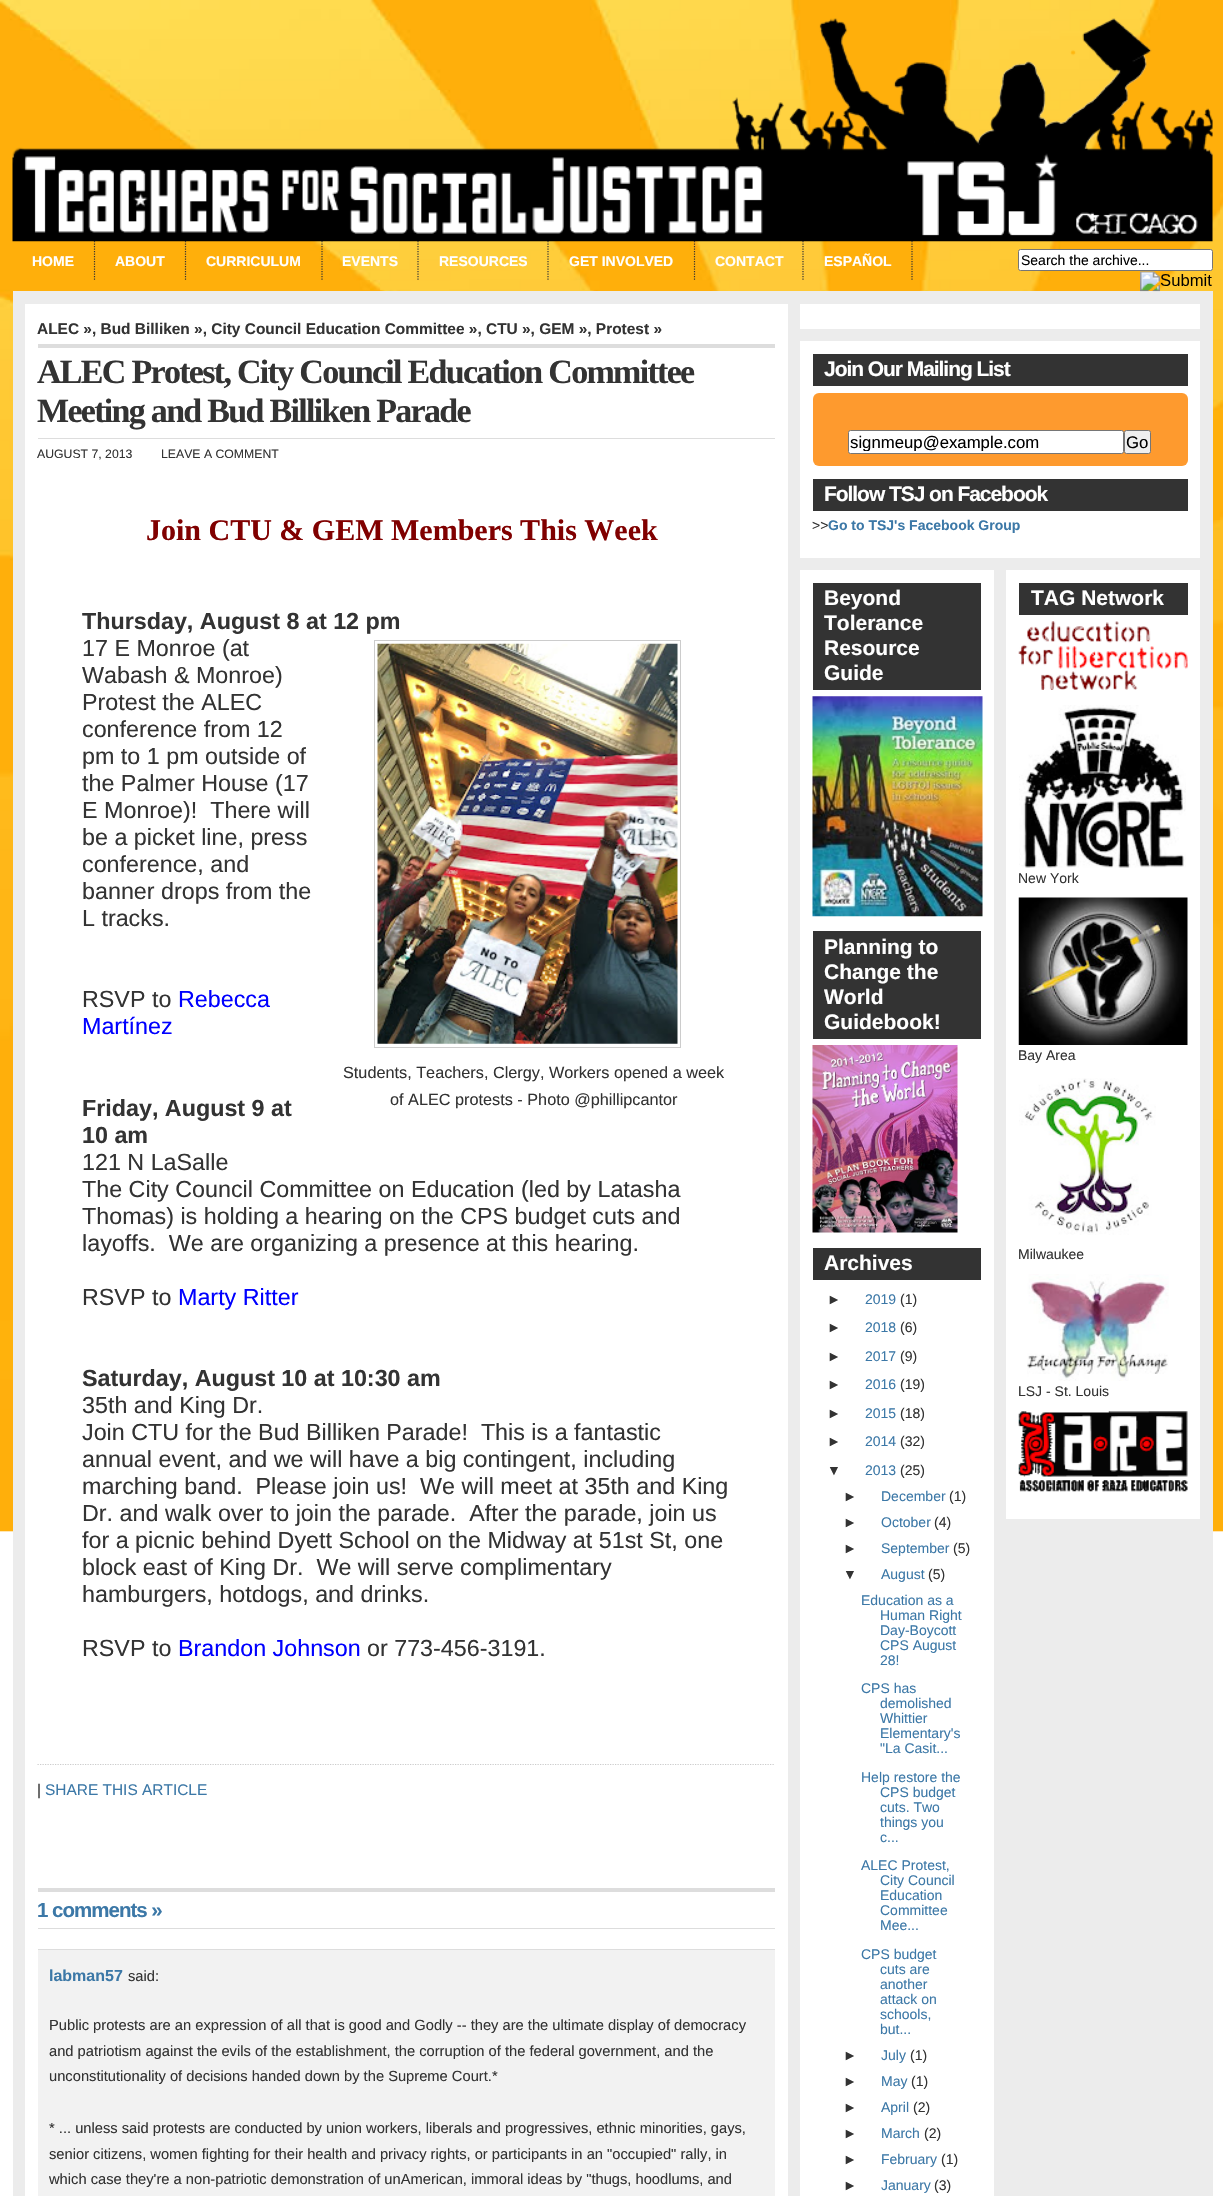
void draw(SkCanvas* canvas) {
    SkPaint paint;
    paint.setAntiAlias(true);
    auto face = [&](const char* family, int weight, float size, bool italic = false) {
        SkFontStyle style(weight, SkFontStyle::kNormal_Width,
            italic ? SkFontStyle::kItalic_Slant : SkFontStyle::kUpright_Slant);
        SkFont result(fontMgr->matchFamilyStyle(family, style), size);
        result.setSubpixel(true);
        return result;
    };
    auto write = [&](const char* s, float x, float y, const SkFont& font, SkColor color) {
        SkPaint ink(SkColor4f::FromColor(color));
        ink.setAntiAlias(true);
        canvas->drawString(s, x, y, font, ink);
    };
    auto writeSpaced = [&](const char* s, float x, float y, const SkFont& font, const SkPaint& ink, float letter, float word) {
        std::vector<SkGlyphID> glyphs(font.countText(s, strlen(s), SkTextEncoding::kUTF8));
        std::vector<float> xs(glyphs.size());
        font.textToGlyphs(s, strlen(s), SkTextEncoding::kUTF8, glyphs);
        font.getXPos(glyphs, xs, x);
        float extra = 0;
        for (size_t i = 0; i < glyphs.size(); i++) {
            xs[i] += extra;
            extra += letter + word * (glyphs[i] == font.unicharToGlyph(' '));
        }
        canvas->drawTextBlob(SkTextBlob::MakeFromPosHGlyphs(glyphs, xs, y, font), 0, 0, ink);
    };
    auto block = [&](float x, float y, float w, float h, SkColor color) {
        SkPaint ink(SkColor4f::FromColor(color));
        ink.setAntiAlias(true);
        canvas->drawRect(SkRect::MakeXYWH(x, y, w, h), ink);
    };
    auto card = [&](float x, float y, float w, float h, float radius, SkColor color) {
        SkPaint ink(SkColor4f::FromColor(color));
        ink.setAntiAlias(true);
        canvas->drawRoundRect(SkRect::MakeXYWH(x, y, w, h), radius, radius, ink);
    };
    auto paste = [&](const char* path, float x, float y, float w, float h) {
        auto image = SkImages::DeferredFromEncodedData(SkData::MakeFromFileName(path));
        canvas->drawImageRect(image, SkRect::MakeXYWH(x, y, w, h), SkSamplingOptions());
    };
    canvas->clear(SK_ColorWHITE);
    paste("pic1.png", 0, 0, 1223, 1532);
    paste("pic2.png", 12, 18, 1201, 224);
    paint.setStyle(SkPaint::kStroke_Style);
    paint.setStrokeWidth(1.2f);
    paint.setColor(SkColorSetRGB(51, 51, 51));
    paint.setPathEffect(SkDashPathEffect::Make({{1.25f, 1.25f}}, 0));
    canvas->drawPath(SkPathBuilder().moveTo(94.5f, 241).lineTo(94.5f, 281).detach(), paint);
    paint.setPathEffect(nullptr);
    auto kFont1 = face("Liberation Sans", 700, 14);
    write("HOME", 32, 266, kFont1, SK_ColorWHITE);
    paint.setPathEffect(SkDashPathEffect::Make({{1.25f, 1.25f}}, 0));
    canvas->drawPath(SkPathBuilder().moveTo(185.5f, 241).lineTo(185.5f, 281).detach(), paint);
    paint.setPathEffect(nullptr);
    write("ABOUT", 115, 266, kFont1, SK_ColorWHITE);
    paint.setPathEffect(SkDashPathEffect::Make({{1.25f, 1.25f}}, 0));
    canvas->drawPath(SkPathBuilder().moveTo(322, 241).lineTo(322, 281).detach(), paint);
    paint.setPathEffect(nullptr);
    write("CURRICULUM", 206, 266, kFont1, SK_ColorWHITE);
    paint.setPathEffect(SkDashPathEffect::Make({{1.25f, 1.25f}}, 0));
    canvas->drawPath(SkPathBuilder().moveTo(418, 241).lineTo(418, 281).detach(), paint);
    paint.setPathEffect(nullptr);
    write("EVENTS", 342, 266, kFont1, SK_ColorWHITE);
    paint.setPathEffect(SkDashPathEffect::Make({{1.25f, 1.25f}}, 0));
    canvas->drawPath(SkPathBuilder().moveTo(548, 241).lineTo(548, 281).detach(), paint);
    paint.setPathEffect(nullptr);
    write("RESOURCES", 439, 266, kFont1, SK_ColorWHITE);
    paint.setPathEffect(SkDashPathEffect::Make({{1.25f, 1.25f}}, 0));
    canvas->drawPath(SkPathBuilder().moveTo(694.5f, 241).lineTo(694.5f, 281).detach(), paint);
    paint.setPathEffect(nullptr);
    write("GET INVOLVED", 569, 266, kFont1, SK_ColorWHITE);
    paint.setPathEffect(SkDashPathEffect::Make({{1.25f, 1.25f}}, 0));
    canvas->drawPath(SkPathBuilder().moveTo(803, 241).lineTo(803, 281).detach(), paint);
    paint.setPathEffect(nullptr);
    write("CONTACT", 715, 266, kFont1, SK_ColorWHITE);
    paint.setPathEffect(SkDashPathEffect::Make({{1.25f, 1.25f}}, 0));
    canvas->drawPath(SkPathBuilder().moveTo(912, 241).lineTo(912, 281).detach(), paint);
    paint.setPathEffect(nullptr);
    write("ESPAÑOL", 824, 266, kFont1, SK_ColorWHITE);
    paint.setStyle(SkPaint::kFill_Style);
    paint.setColor(SK_ColorWHITE);
    canvas->drawRoundRect(SkRect::MakeXYWH(1018.5f, 249.5f, 194, 21), 2, 2, paint);
    paint.setStyle(SkPaint::kStroke_Style);
    paint.setStrokeWidth(1);
    paint.setColor(SkColorSetRGB(118, 118, 118));
    canvas->drawRoundRect(SkRect::MakeXYWH(1018.5f, 249.5f, 194, 21), 2, 2, paint);
    auto kFont2 = face("Liberation Sans", 400, 14);
    write("Search the archive...", 1021, 265, kFont2, SK_ColorBLACK);
    block(13, 291, 1200, 1905, SkColorSetRGB(236, 236, 236));
    paste("pic3.png", 1140, 271, 72, 21);
    block(25, 304, 763, 1892, SK_ColorWHITE);
    auto kFont3 = face("Liberation Sans", 700, 15.45f);
    write("ALEC », Bud Billiken », City Council Education Committee », CTU », GEM », Protest »", 37, 334, kFont3, SkColorSetRGB(51, 51, 51));
    block(38, 344, 737, 4, SkColorSetRGB(221, 221, 221));
    block(38, 438, 737, 1, SkColorSetRGB(221, 221, 221));
    auto kFont4 = face("Liberation Serif", 700, 34);
    paint.setStyle(SkPaint::kFill_Style);
    paint.setColor(SkColorSetRGB(51, 51, 51));
    writeSpaced("ALEC Protest, City Council Education Committee", 37, 383, kFont4, paint, -1.7f, 0);
    writeSpaced("Meeting and Bud Billiken Parade", 37, 422, kFont4, paint, -1.7f, 0);
    auto kFont5 = face("Liberation Sans", 400, 12.25f);
    write("AUGUST 7, 2013", 37, 458, kFont5, SkColorSetRGB(51, 51, 51));
    write("LEAVE A COMMENT", 161, 458, kFont5, SkColorSetRGB(51, 51, 51));
    paint.setStyle(SkPaint::kStroke_Style);
    paint.setStrokeWidth(1.2f);
    paint.setColor(SkColorSetRGB(204, 204, 204));
    paint.setPathEffect(SkDashPathEffect::Make({{1.25f, 1.25f}}, 0));
    canvas->drawPath(SkPathBuilder().moveTo(37.5f, 1764.5f).lineTo(775, 1764.5f).detach(), paint);
    paint.setPathEffect(nullptr);
    auto kFont6 = face("Liberation Serif", 700, 30);
    write("Join CTU & GEM Members This Week", 146, 540, kFont6, SkColorSetRGB(128, 0, 0));
    auto kFont7 = face("Liberation Sans", 700, 23.3f);
    write("Thursday, August 8 at 12 pm", 82, 629, kFont7, SkColorSetRGB(51, 51, 51));
    auto kFont8 = face("Liberation Sans", 400, 23.3f);
    write("17 E Monroe (at", 82, 656, kFont8, SkColorSetRGB(51, 51, 51));
    write("Wabash & Monroe)", 82, 683, kFont8, SkColorSetRGB(51, 51, 51));
    write("Protest the ALEC", 82, 710, kFont8, SkColorSetRGB(51, 51, 51));
    write("conference from 12", 82, 737, kFont8, SkColorSetRGB(51, 51, 51));
    write("pm to 1 pm outside of", 82, 764, kFont8, SkColorSetRGB(51, 51, 51));
    write("the Palmer House (17", 82, 791, kFont8, SkColorSetRGB(51, 51, 51));
    write("E Monroe)!  There will", 82, 818, kFont8, SkColorSetRGB(51, 51, 51));
    write("be a picket line, press", 82, 845, kFont8, SkColorSetRGB(51, 51, 51));
    write("conference, and", 82, 872, kFont8, SkColorSetRGB(51, 51, 51));
    write("banner drops from the", 82, 899, kFont8, SkColorSetRGB(51, 51, 51));
    write("L tracks.", 82, 926, kFont8, SkColorSetRGB(51, 51, 51));
    write("RSVP to", 82, 1007, kFont8, SkColorSetRGB(51, 51, 51));
    write("Rebecca", 178, 1007, kFont8, SkColorSetRGB(0, 0, 255));
    write("Martínez", 82, 1034, kFont8, SkColorSetRGB(0, 0, 255));
    write("Friday, August 9 at", 82, 1116, kFont7, SkColorSetRGB(51, 51, 51));
    paint.setStrokeWidth(1);
    canvas->drawRect(SkRect::MakeXYWH(374.5f, 640.5f, 306, 407), paint);
    paste("pic4.png", 377, 643, 301, 401);
    auto kFont9 = face("Liberation Sans", 400, 16.25f);
    write("Students, Teachers, Clergy, Workers opened a week", 343, 1078, kFont9, SkColorSetRGB(51, 51, 51));
    write("of ALEC protests - Photo @phillipcantor", 390, 1105, kFont9, SkColorSetRGB(51, 51, 51));
    write("10 am", 82, 1143, kFont7, SkColorSetRGB(51, 51, 51));
    write("121 N LaSalle", 82, 1170, kFont8, SkColorSetRGB(51, 51, 51));
    write("The City Council Committee on Education (led by Latasha", 82, 1197, kFont8, SkColorSetRGB(51, 51, 51));
    write("Thomas) is holding a hearing on the CPS budget cuts and", 82, 1224, kFont8, SkColorSetRGB(51, 51, 51));
    write("layoffs.  We are organizing a presence at this hearing.", 82, 1251, kFont8, SkColorSetRGB(51, 51, 51));
    write("RSVP to", 82, 1305, kFont8, SkColorSetRGB(51, 51, 51));
    write("Marty Ritter", 178, 1305, kFont8, SkColorSetRGB(0, 0, 255));
    write("Saturday, August 10 at 10:30 am", 82, 1386, kFont7, SkColorSetRGB(51, 51, 51));
    write("35th and King Dr.", 82, 1413, kFont8, SkColorSetRGB(51, 51, 51));
    write("Join CTU for the Bud Billiken Parade!  This is a fantastic", 82, 1440, kFont8, SkColorSetRGB(51, 51, 51));
    write("annual event, and we will have a big contingent, including", 82, 1467, kFont8, SkColorSetRGB(51, 51, 51));
    write("marching band.  Please join us!  We will meet at 35th and King", 82, 1494, kFont8, SkColorSetRGB(51, 51, 51));
    write("Dr. and walk over to join the parade.  After the parade, join us", 82, 1521, kFont8, SkColorSetRGB(51, 51, 51));
    write("for a picnic behind Dyett School on the Midway at 51st St, one", 82, 1548, kFont8, SkColorSetRGB(51, 51, 51));
    write("block east of King Dr.  We will serve complimentary", 82, 1575, kFont8, SkColorSetRGB(51, 51, 51));
    write("hamburgers, hotdogs, and drinks.", 82, 1602, kFont8, SkColorSetRGB(51, 51, 51));
    write("RSVP to", 82, 1656, kFont8, SkColorSetRGB(51, 51, 51));
    write("Brandon Johnson", 178, 1656, kFont8, SkColorSetRGB(0, 0, 255));
    write("or 773-456-3191.", 367, 1656, kFont8, SkColorSetRGB(51, 51, 51));
    auto kFont10 = face("Liberation Sans", 400, 15.45f);
    write("|", 37, 1795, kFont10, SkColorSetRGB(51, 51, 51));
    write("SHARE THIS ARTICLE", 45, 1795, kFont10, SkColorSetRGB(60, 120, 167));
    block(38, 1888, 737, 4, SkColorSetRGB(221, 221, 221));
    block(38, 1928, 737, 1, SkColorSetRGB(221, 221, 221));
    auto kFont11 = face("Liberation Sans", 700, 20.5f);
    paint.setStyle(SkPaint::kFill_Style);
    paint.setColor(SkColorSetRGB(60, 120, 167));
    writeSpaced("1 comments »", 37, 1917, kFont11, paint, -1, 0);
    block(38, 1950, 737, 246, SkColorSetRGB(242, 242, 242));
    block(38, 1949, 737, 1, SkColorSetRGB(221, 221, 221));
    auto kFont12 = face("Liberation Sans", 700, 16);
    write("labman57", 49, 1981, kFont12, SkColorSetRGB(60, 120, 167));
    auto kFont13 = face("Liberation Sans", 400, 14.7f);
    write("said:", 128, 1981, kFont13, SkColorSetRGB(51, 51, 51));
    write("Public protests are an expression of all that is good and Godly -- they are the ultimate display of democracy", 49, 2030, kFont13, SkColorSetRGB(51, 51, 51));
    write("and patriotism against the evils of the establishment, the corruption of the federal government, and the", 49, 2056, kFont13, SkColorSetRGB(51, 51, 51));
    write("unconstitutionality of decisions handed down by the Supreme Court.*", 49, 2081, kFont13, SkColorSetRGB(51, 51, 51));
    write("* ... unless said protests are conducted by union workers, liberals and progressives, ethnic minorities, gays,", 49, 2133, kFont13, SkColorSetRGB(51, 51, 51));
    write("senior citizens, women fighting for their health and privacy rights, or participants in an \"occupied\" rally, in", 49, 2159, kFont13, SkColorSetRGB(51, 51, 51));
    write("which case they're a non-patriotic demonstration of unAmerican, immoral ideas by \"thugs, hoodlums, and", 49, 2184, kFont13, SkColorSetRGB(51, 51, 51));
    block(800, 304, 400, 25, SK_ColorWHITE);
    block(800, 341, 400, 217, SK_ColorWHITE);
    block(813, 354, 375, 32, SkColorSetRGB(51, 51, 51));
    auto kFont14 = face("Liberation Sans", 700, 21);
    paint.setColor(SK_ColorWHITE);
    writeSpaced("Join Our Mailing List", 824, 376, kFont14, paint, -1.05f, 0);
    card(813, 393, 375, 73, 6, SkColorSetRGB(254, 154, 46));
    canvas->drawRoundRect(SkRect::MakeXYWH(848.5f, 430.5f, 275, 23), 2, 2, paint);
    paint.setStyle(SkPaint::kStroke_Style);
    paint.setColor(SkColorSetRGB(118, 118, 118));
    canvas->drawRoundRect(SkRect::MakeXYWH(848.5f, 430.5f, 275, 23), 2, 2, paint);
    canvas->save();
    canvas->clipRect(SkRect::MakeXYWH(850, 433, 271, 18));
    auto kFont15 = face("Liberation Sans", 400, 16.75f);
    write("signmeup@example.com", 850, 448, kFont15, SK_ColorBLACK);
    canvas->restore();
    paint.setStyle(SkPaint::kFill_Style);
    paint.setColor(SkColorSetRGB(239, 239, 239));
    canvas->drawRoundRect(SkRect::MakeXYWH(1124.5f, 430.5f, 26, 23), 2, 2, paint);
    paint.setStyle(SkPaint::kStroke_Style);
    paint.setColor(SkColorSetRGB(118, 118, 118));
    canvas->drawRoundRect(SkRect::MakeXYWH(1124.5f, 430.5f, 26, 23), 2, 2, paint);
    write("Go", 1126, 448, kFont15, SK_ColorBLACK);
    block(813, 479, 375, 32, SkColorSetRGB(51, 51, 51));
    paint.setStyle(SkPaint::kFill_Style);
    paint.setColor(SK_ColorWHITE);
    writeSpaced("Follow TSJ on Facebook", 824, 501, kFont14, paint, -1.05f, 0);
    write(">>", 812, 530, kFont2, SkColorSetRGB(51, 51, 51));
    write("Go to TSJ's Facebook Group", 828, 530, kFont1, SkColorSetRGB(60, 120, 167));
    block(800, 570, 194, 1626, SK_ColorWHITE);
    block(813, 583, 168, 107, SkColorSetRGB(51, 51, 51));
    write("Beyond", 824, 605, kFont14, SK_ColorWHITE);
    write("Tolerance", 824, 630, kFont14, SK_ColorWHITE);
    write("Resource", 824, 655, kFont14, SK_ColorWHITE);
    write("Guide", 824, 680, kFont14, SK_ColorWHITE);
    paste("pic5.png", 812, 696, 171, 221);
    block(813, 931, 168, 108, SkColorSetRGB(51, 51, 51));
    write("Planning to", 824, 954, kFont14, SK_ColorWHITE);
    write("Change the", 824, 979, kFont14, SK_ColorWHITE);
    write("World", 824, 1004, kFont14, SK_ColorWHITE);
    write("Guidebook!", 824, 1029, kFont14, SK_ColorWHITE);
    paste("pic6.png", 812, 1045, 146, 188);
    block(813, 1248, 168, 32, SkColorSetRGB(51, 51, 51));
    write("Archives", 824, 1270, kFont14, SK_ColorWHITE);
    write("►", 827, 1304, kFont2, SkColorSetRGB(51, 51, 51));
    write("2019", 865, 1304, kFont2, SkColorSetRGB(60, 120, 167));
    write("(1)", 900, 1304, kFont2, SkColorSetRGB(51, 51, 51));
    write("►", 827, 1332, kFont2, SkColorSetRGB(51, 51, 51));
    write("2018", 865, 1332, kFont2, SkColorSetRGB(60, 120, 167));
    write("(6)", 900, 1332, kFont2, SkColorSetRGB(51, 51, 51));
    write("►", 827, 1361, kFont2, SkColorSetRGB(51, 51, 51));
    write("2017", 865, 1361, kFont2, SkColorSetRGB(60, 120, 167));
    write("(9)", 900, 1361, kFont2, SkColorSetRGB(51, 51, 51));
    write("►", 827, 1389, kFont2, SkColorSetRGB(51, 51, 51));
    write("2016", 865, 1389, kFont2, SkColorSetRGB(60, 120, 167));
    write("(19)", 900, 1389, kFont2, SkColorSetRGB(51, 51, 51));
    write("►", 827, 1418, kFont2, SkColorSetRGB(51, 51, 51));
    write("2015", 865, 1418, kFont2, SkColorSetRGB(60, 120, 167));
    write("(18)", 900, 1418, kFont2, SkColorSetRGB(51, 51, 51));
    write("►", 827, 1446, kFont2, SkColorSetRGB(51, 51, 51));
    write("2014", 865, 1446, kFont2, SkColorSetRGB(60, 120, 167));
    write("(32)", 900, 1446, kFont2, SkColorSetRGB(51, 51, 51));
    write("▼", 827, 1475, kFont2, SkColorSetRGB(51, 51, 51));
    write("2013", 865, 1475, kFont2, SkColorSetRGB(60, 120, 167));
    write("(25)", 900, 1475, kFont2, SkColorSetRGB(51, 51, 51));
    write("►", 843, 1501, kFont2, SkColorSetRGB(51, 51, 51));
    write("December", 881, 1501, kFont2, SkColorSetRGB(60, 120, 167));
    write("(1)", 949, 1501, kFont2, SkColorSetRGB(51, 51, 51));
    write("►", 843, 1527, kFont2, SkColorSetRGB(51, 51, 51));
    write("October", 881, 1527, kFont2, SkColorSetRGB(60, 120, 167));
    write("(4)", 934, 1527, kFont2, SkColorSetRGB(51, 51, 51));
    write("►", 843, 1553, kFont2, SkColorSetRGB(51, 51, 51));
    write("September", 881, 1553, kFont2, SkColorSetRGB(60, 120, 167));
    write("(5)", 953, 1553, kFont2, SkColorSetRGB(51, 51, 51));
    write("▼", 843, 1579, kFont2, SkColorSetRGB(51, 51, 51));
    write("August", 881, 1579, kFont2, SkColorSetRGB(60, 120, 167));
    write("(5)", 928, 1579, kFont2, SkColorSetRGB(51, 51, 51));
    write("Education as a", 861, 1605, kFont2, SkColorSetRGB(60, 120, 167));
    write("Human Right", 880, 1620, kFont2, SkColorSetRGB(60, 120, 167));
    write("Day-Boycott", 880, 1635, kFont2, SkColorSetRGB(60, 120, 167));
    write("CPS August", 880, 1650, kFont2, SkColorSetRGB(60, 120, 167));
    write("28!", 880, 1665, kFont2, SkColorSetRGB(60, 120, 167));
    write("CPS has", 861, 1693, kFont2, SkColorSetRGB(60, 120, 167));
    write("demolished", 880, 1708, kFont2, SkColorSetRGB(60, 120, 167));
    write("Whittier", 880, 1723, kFont2, SkColorSetRGB(60, 120, 167));
    write("Elementary's", 880, 1738, kFont2, SkColorSetRGB(60, 120, 167));
    write("\"La Casit...", 880, 1753, kFont2, SkColorSetRGB(60, 120, 167));
    write("Help restore the", 861, 1782, kFont2, SkColorSetRGB(60, 120, 167));
    write("CPS budget", 880, 1797, kFont2, SkColorSetRGB(60, 120, 167));
    write("cuts. Two", 880, 1812, kFont2, SkColorSetRGB(60, 120, 167));
    write("things you", 880, 1827, kFont2, SkColorSetRGB(60, 120, 167));
    write("c...", 880, 1842, kFont2, SkColorSetRGB(60, 120, 167));
    write("ALEC Protest,", 861, 1870, kFont2, SkColorSetRGB(60, 120, 167));
    write("City Council", 880, 1885, kFont2, SkColorSetRGB(60, 120, 167));
    write("Education", 880, 1900, kFont2, SkColorSetRGB(60, 120, 167));
    write("Committee", 880, 1915, kFont2, SkColorSetRGB(60, 120, 167));
    write("Mee...", 880, 1930, kFont2, SkColorSetRGB(60, 120, 167));
    write("CPS budget", 861, 1959, kFont2, SkColorSetRGB(60, 120, 167));
    write("cuts are", 880, 1974, kFont2, SkColorSetRGB(60, 120, 167));
    write("another", 880, 1989, kFont2, SkColorSetRGB(60, 120, 167));
    write("attack on", 880, 2004, kFont2, SkColorSetRGB(60, 120, 167));
    write("schools,", 880, 2019, kFont2, SkColorSetRGB(60, 120, 167));
    write("but...", 880, 2034, kFont2, SkColorSetRGB(60, 120, 167));
    write("►", 843, 2060, kFont2, SkColorSetRGB(51, 51, 51));
    write("July", 881, 2060, kFont2, SkColorSetRGB(60, 120, 167));
    write("(1)", 910, 2060, kFont2, SkColorSetRGB(51, 51, 51));
    write("►", 843, 2086, kFont2, SkColorSetRGB(51, 51, 51));
    write("May", 881, 2086, kFont2, SkColorSetRGB(60, 120, 167));
    write("(1)", 911, 2086, kFont2, SkColorSetRGB(51, 51, 51));
    write("►", 843, 2112, kFont2, SkColorSetRGB(51, 51, 51));
    write("April", 881, 2112, kFont2, SkColorSetRGB(60, 120, 167));
    write("(2)", 913, 2112, kFont2, SkColorSetRGB(51, 51, 51));
    write("►", 843, 2138, kFont2, SkColorSetRGB(51, 51, 51));
    write("March", 881, 2138, kFont2, SkColorSetRGB(60, 120, 167));
    write("(2)", 924, 2138, kFont2, SkColorSetRGB(51, 51, 51));
    write("►", 843, 2164, kFont2, SkColorSetRGB(51, 51, 51));
    write("February", 881, 2164, kFont2, SkColorSetRGB(60, 120, 167));
    write("(1)", 941, 2164, kFont2, SkColorSetRGB(51, 51, 51));
    write("►", 843, 2190, kFont2, SkColorSetRGB(51, 51, 51));
    write("January", 881, 2190, kFont2, SkColorSetRGB(60, 120, 167));
    write("(3)", 934, 2190, kFont2, SkColorSetRGB(51, 51, 51));
    block(1006, 570, 194, 949, SK_ColorWHITE);
    block(1019, 583, 169, 32, SkColorSetRGB(51, 51, 51));
    write("TAG Network", 1031, 605, kFont14, SK_ColorWHITE);
    paste("pic7.png", 1018, 621, 170, 69);
    paste("pic8.png", 1019, 705, 167, 163);
    write("New York", 1018, 883, kFont2, SkColorSetRGB(51, 51, 51));
    paste("pic9.png", 1018, 897, 170, 148);
    write("Bay Area", 1018, 1060, kFont2, SkColorSetRGB(51, 51, 51));
    paste("pic10.png", 1019, 1078, 137, 157);
    write("Milwaukee", 1018, 1259, kFont2, SkColorSetRGB(51, 51, 51));
    paste("pic11.png", 1027, 1274, 142, 107);
    write("LSJ - St. Louis", 1018, 1396, kFont2, SkColorSetRGB(51, 51, 51));
    paste("pic12.png", 1018, 1411, 170, 81);
}
